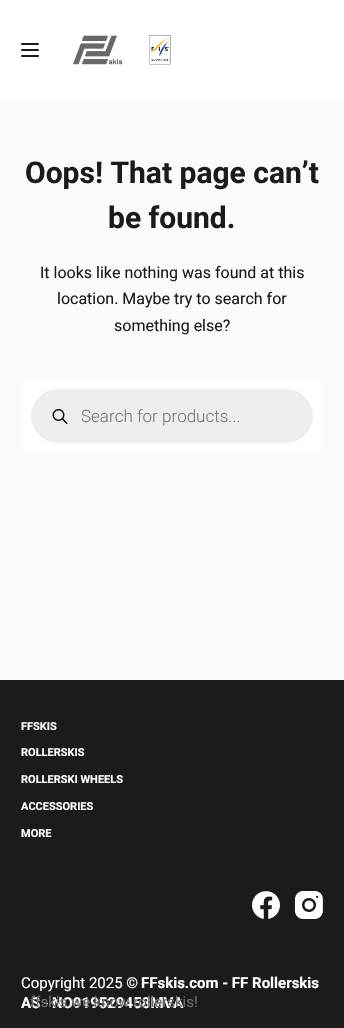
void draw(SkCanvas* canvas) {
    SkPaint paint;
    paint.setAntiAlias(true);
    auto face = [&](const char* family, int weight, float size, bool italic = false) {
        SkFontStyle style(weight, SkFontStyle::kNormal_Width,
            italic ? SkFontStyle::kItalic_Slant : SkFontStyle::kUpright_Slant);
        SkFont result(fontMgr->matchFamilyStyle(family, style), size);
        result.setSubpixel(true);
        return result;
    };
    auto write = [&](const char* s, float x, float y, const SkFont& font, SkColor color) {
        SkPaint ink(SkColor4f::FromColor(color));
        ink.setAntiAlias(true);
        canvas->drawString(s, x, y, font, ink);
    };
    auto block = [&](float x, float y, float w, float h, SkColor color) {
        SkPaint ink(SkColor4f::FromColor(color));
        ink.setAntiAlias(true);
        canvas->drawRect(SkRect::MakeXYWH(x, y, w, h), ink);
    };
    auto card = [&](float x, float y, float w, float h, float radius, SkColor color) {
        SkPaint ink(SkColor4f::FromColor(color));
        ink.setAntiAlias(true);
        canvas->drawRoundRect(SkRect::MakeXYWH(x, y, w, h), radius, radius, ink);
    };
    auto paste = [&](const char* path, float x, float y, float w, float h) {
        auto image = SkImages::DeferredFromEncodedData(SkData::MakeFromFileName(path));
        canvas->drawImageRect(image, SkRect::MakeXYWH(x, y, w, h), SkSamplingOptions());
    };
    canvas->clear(SkColorSetRGB(250, 251, 252));
    block(0, 0, 344, 100, SK_ColorWHITE);
    card(21, 43, 18, 2, 1, SkColorSetRGB(27, 27, 27));
    card(21, 49, 18, 2, 1, SkColorSetRGB(27, 27, 27));
    card(21, 55, 18, 2, 1, SkColorSetRGB(27, 27, 27));
    paste("pic1.png", 73, 35, 98, 30);
    auto kFont1 = face("Roboto", 700, 30);
    write("Oops! That page can’t", 25, 183, kFont1, SkColorSetRGB(27, 27, 27));
    write("be found.", 108, 228, kFont1, SkColorSetRGB(27, 27, 27));
    auto kFont2 = face("Roboto", 400, 16);
    write("It looks like nothing was found at this", 40, 278, kFont2, SkColorSetRGB(27, 27, 27));
    write("location. Maybe try to search for", 57, 304, kFont2, SkColorSetRGB(27, 27, 27));
    write("something else?", 114, 331, kFont2, SkColorSetRGB(27, 27, 27));
    card(21, 379, 302, 74, 10, SK_ColorWHITE);
    card(31, 389, 282, 54, 27, SkColorSetRGB(238, 238, 238));
    paste("pic2.png", 52, 409, 16, 15);
    auto kFont3 = face("Roboto", 300, 17);
    write("Search for products...", 81, 422, kFont3, SkColorSetRGB(119, 119, 119));
    block(0, 680, 344, 348, SkColorSetRGB(27, 27, 27));
    auto kFont4 = face("Roboto", 700, 11);
    write("FFSKIS", 21, 730, kFont4, SK_ColorWHITE);
    write("ROLLERSKIS", 21, 756, kFont4, SK_ColorWHITE);
    write("ROLLERSKI WHEELS", 21, 783, kFont4, SK_ColorWHITE);
    write("ACCESSORIES", 21, 810, kFont4, SK_ColorWHITE);
    write("MORE", 21, 837, kFont4, SK_ColorWHITE);
    paste("pic3.png", 252, 891, 28, 28);
    paste("pic4.png", 295, 891, 28, 28);
    auto kFont5 = face("Roboto", 400, 15);
    write("Copyright 2025 ©", 21, 988, kFont5, SK_ColorWHITE);
    auto kFont6 = face("Roboto", 700, 15);
    write("FFskis.com - FF Rollerskis", 141, 988, kFont6, SK_ColorWHITE);
    write("AS", 21, 1008, kFont6, SK_ColorWHITE);
    write("-", 44, 1008, kFont5, SK_ColorWHITE);
    write("NO919529458MVA", 52, 1008, kFont6, SK_ColorWHITE);
    write("ffskis we know rollerskis!", 30, 1007, kFont5, SkColorSetRGB(112, 112, 112));
}
